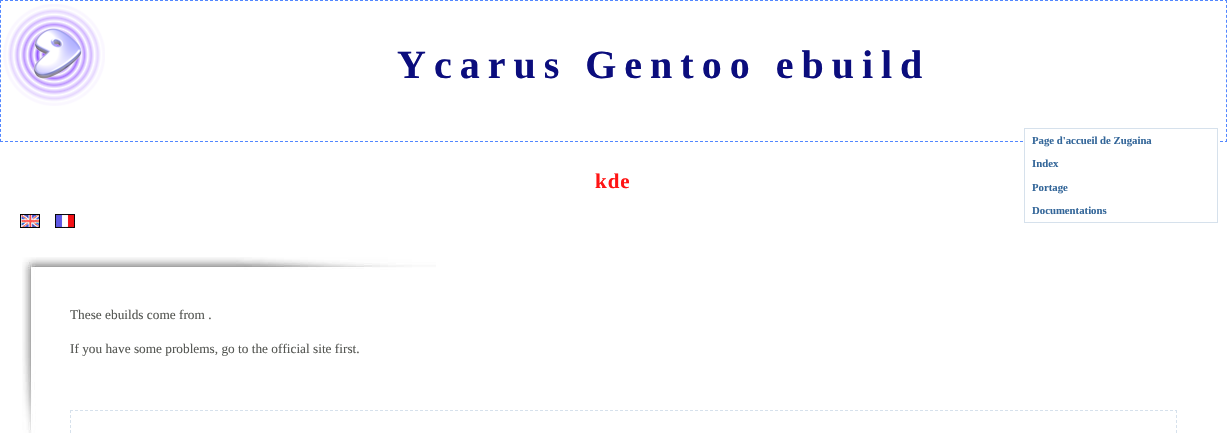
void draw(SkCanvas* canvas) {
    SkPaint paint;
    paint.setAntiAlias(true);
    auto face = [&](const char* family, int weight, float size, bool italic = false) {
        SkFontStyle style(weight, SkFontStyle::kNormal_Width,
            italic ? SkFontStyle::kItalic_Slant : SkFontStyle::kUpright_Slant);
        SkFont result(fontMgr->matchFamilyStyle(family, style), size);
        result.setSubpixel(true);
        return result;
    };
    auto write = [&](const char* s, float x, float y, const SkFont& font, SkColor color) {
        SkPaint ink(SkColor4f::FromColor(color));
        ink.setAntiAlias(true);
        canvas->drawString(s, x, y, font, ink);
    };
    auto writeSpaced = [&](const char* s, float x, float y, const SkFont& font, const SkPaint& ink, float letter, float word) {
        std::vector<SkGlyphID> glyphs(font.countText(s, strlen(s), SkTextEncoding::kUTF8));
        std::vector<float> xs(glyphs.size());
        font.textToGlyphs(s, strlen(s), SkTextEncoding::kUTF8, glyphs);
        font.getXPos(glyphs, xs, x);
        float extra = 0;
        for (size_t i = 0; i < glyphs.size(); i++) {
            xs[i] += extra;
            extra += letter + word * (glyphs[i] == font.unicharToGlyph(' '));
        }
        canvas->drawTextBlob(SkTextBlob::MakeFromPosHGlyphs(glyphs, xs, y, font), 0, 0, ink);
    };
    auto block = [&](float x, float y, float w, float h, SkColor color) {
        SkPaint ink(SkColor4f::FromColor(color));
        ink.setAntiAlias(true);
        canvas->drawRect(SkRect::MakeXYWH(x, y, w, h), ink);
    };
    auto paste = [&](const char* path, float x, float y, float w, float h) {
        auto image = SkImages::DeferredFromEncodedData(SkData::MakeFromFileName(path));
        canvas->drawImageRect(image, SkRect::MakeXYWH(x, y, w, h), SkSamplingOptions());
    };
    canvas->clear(SK_ColorWHITE);
    paste("pic1.png", 3, 4, 102, 102);
    paint.setStyle(SkPaint::kStroke_Style);
    paint.setStrokeWidth(1);
    paint.setColor(SkColorSetRGB(83, 135, 255));
    paint.setPathEffect(SkDashPathEffect::Make({{3, 2}}, 0));
    canvas->drawPath(SkPathBuilder().moveTo(0, 0.5f).lineTo(1227, 0.5f).detach(), paint);
    paint.setPathEffect(nullptr);
    paint.setPathEffect(SkDashPathEffect::Make({{3, 1.96f}}, 0));
    canvas->drawPath(SkPathBuilder().moveTo(1226.5f, 0).lineTo(1226.5f, 142).detach(), paint);
    paint.setPathEffect(nullptr);
    paint.setPathEffect(SkDashPathEffect::Make({{3, 2}}, 0));
    canvas->drawPath(SkPathBuilder().moveTo(0, 141.5f).lineTo(1227, 141.5f).detach(), paint);
    paint.setPathEffect(nullptr);
    paint.setPathEffect(SkDashPathEffect::Make({{3, 1.96f}}, 0));
    canvas->drawPath(SkPathBuilder().moveTo(0.5f, 0).lineTo(0.5f, 142).detach(), paint);
    paint.setPathEffect(nullptr);
    auto kFont1 = face("Liberation Serif", 700, 40);
    paint.setStyle(SkPaint::kFill_Style);
    paint.setColor(SkColorSetRGB(11, 13, 125));
    writeSpaced("Ycarus Gentoo ebuild", 397, 78, kFont1, paint, 8, 0);
    auto kFont2 = face("Liberation Serif", 700, 21);
    paint.setColor(SkColorSetRGB(255, 20, 20));
    writeSpaced("kde", 595, 188, kFont2, paint, 1, 0);
    paint.setStyle(SkPaint::kStroke_Style);
    paint.setColor(SkColorSetRGB(214, 225, 236));
    canvas->drawRect(SkRect::MakeXYWH(1024.5f, 128.5f, 193, 94), paint);
    block(1025, 141, 192, 1, SK_ColorWHITE);
    auto kFont3 = face("Liberation Serif", 700, 10.75f);
    write("Page d'accueil de Zugaina", 1032, 144, kFont3, SkColorSetRGB(51, 102, 153));
    write("Index", 1032, 167, kFont3, SkColorSetRGB(51, 102, 153));
    write("Portage", 1032, 191, kFont3, SkColorSetRGB(51, 102, 153));
    write("Documentations", 1032, 214, kFont3, SkColorSetRGB(51, 102, 153));
    paste("pic2.png", 20, 214, 20, 14);
    paste("pic3.png", 55, 214, 20, 14);
    paste("pic4.png", 22, 257, 414, 176);
    auto kFont4 = face("Liberation Serif", 400, 13.3f);
    write("These ebuilds come from .", 70, 319, kFont4, SkColorSetRGB(85, 87, 83));
    write("If you have some problems, go to the official site first.", 70, 353, kFont4, SkColorSetRGB(85, 87, 83));
    paint.setPathEffect(SkDashPathEffect::Make({{3, 2}}, 0));
    canvas->drawPath(SkPathBuilder().moveTo(70, 410.5f).lineTo(1177, 410.5f).detach(), paint);
    paint.setPathEffect(nullptr);
    paint.setPathEffect(SkDashPathEffect::Make({{3, 2}}, 0));
    canvas->drawPath(SkPathBuilder().moveTo(1176.5f, 410).lineTo(1176.5f, 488).detach(), paint);
    paint.setPathEffect(nullptr);
    paint.setPathEffect(SkDashPathEffect::Make({{3, 2}}, 0));
    canvas->drawPath(SkPathBuilder().moveTo(70.5f, 410).lineTo(70.5f, 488).detach(), paint);
    paint.setPathEffect(nullptr);
}
